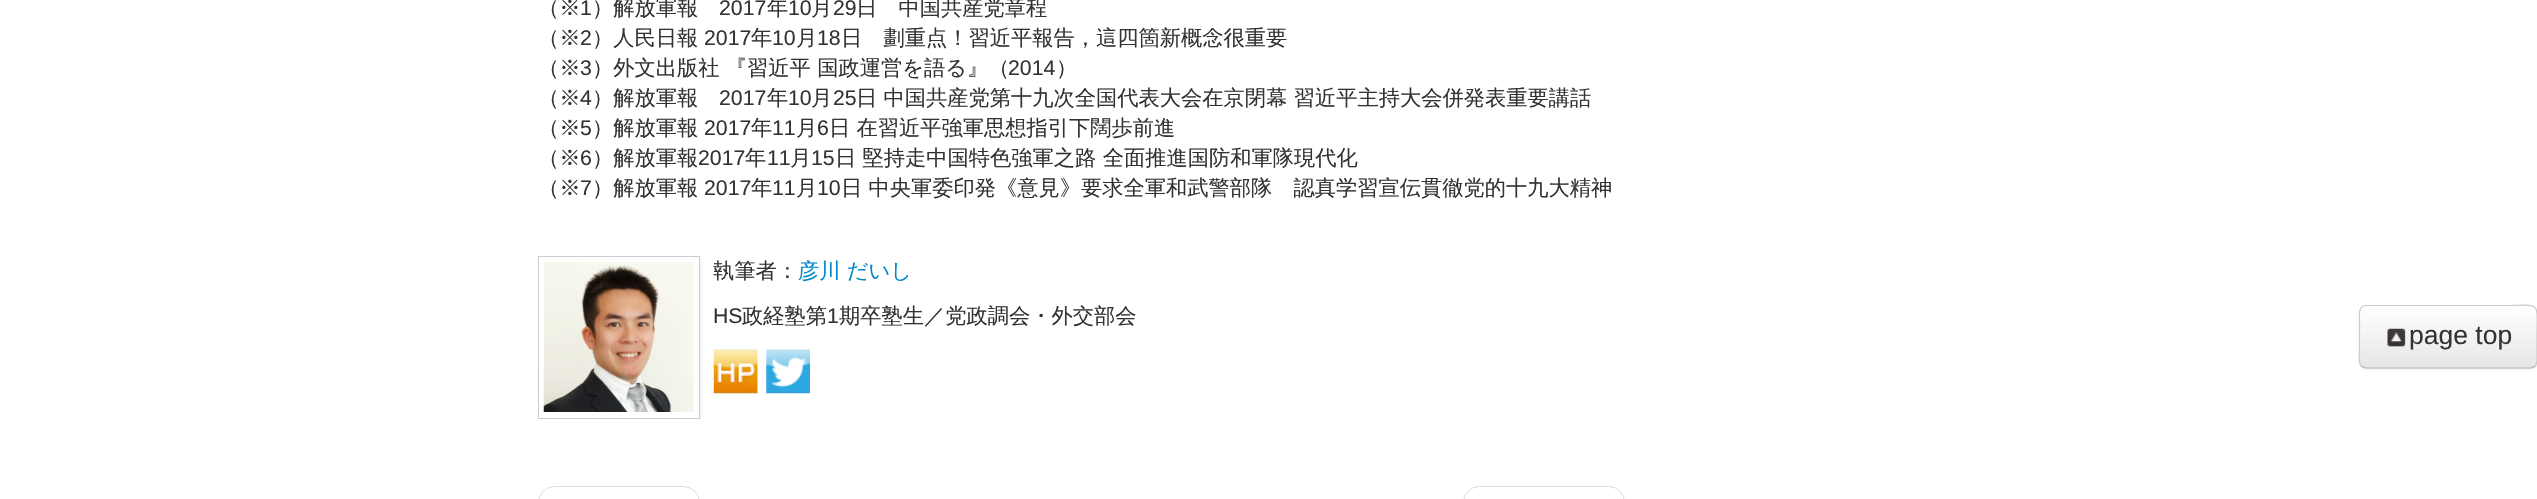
void draw(SkCanvas* canvas) {
    SkPaint paint;
    paint.setAntiAlias(true);
    auto face = [&](const char* family, int weight, float size, bool italic = false) {
        SkFontStyle style(weight, SkFontStyle::kNormal_Width,
            italic ? SkFontStyle::kItalic_Slant : SkFontStyle::kUpright_Slant);
        SkFont result(fontMgr->matchFamilyStyle(family, style), size);
        result.setSubpixel(true);
        return result;
    };
    auto write = [&](const char* s, float x, float y, const SkFont& font, SkColor color) {
        SkPaint ink(SkColor4f::FromColor(color));
        ink.setAntiAlias(true);
        canvas->drawString(s, x, y, font, ink);
    };
    auto card = [&](float x, float y, float w, float h, float radius, SkColor color) {
        SkPaint ink(SkColor4f::FromColor(color));
        ink.setAntiAlias(true);
        canvas->drawRoundRect(SkRect::MakeXYWH(x, y, w, h), radius, radius, ink);
    };
    auto paste = [&](const char* path, float x, float y, float w, float h) {
        auto image = SkImages::DeferredFromEncodedData(SkData::MakeFromFileName(path));
        canvas->drawImageRect(image, SkRect::MakeXYWH(x, y, w, h), SkSamplingOptions());
    };
    canvas->clear(SK_ColorWHITE);
    auto kFont1 = face("WenQuanYi Zen Hei", 500, 21.25f);
    write("（※", 538, 15, kFont1, SkColorSetRGB(51, 51, 51));
    auto kFont2 = face("Liberation Sans", 400, 21.25f);
    write("1", 580, 15, kFont2, SkColorSetRGB(51, 51, 51));
    write("）解放軍報", 592, 15, kFont1, SkColorSetRGB(51, 51, 51));
    write("2017", 719, 15, kFont2, SkColorSetRGB(51, 51, 51));
    write("年", 767, 15, kFont1, SkColorSetRGB(51, 51, 51));
    write("10", 788, 15, kFont2, SkColorSetRGB(51, 51, 51));
    write("月", 811, 15, kFont1, SkColorSetRGB(51, 51, 51));
    write("29", 833, 15, kFont2, SkColorSetRGB(51, 51, 51));
    write("日　中国共産党章程", 856, 15, kFont1, SkColorSetRGB(51, 51, 51));
    write("（※", 538, 45, kFont1, SkColorSetRGB(51, 51, 51));
    write("2", 580, 45, kFont2, SkColorSetRGB(51, 51, 51));
    write("）人民日報", 592, 45, kFont1, SkColorSetRGB(51, 51, 51));
    write("2017", 704, 45, kFont2, SkColorSetRGB(51, 51, 51));
    write("年", 751, 45, kFont1, SkColorSetRGB(51, 51, 51));
    write("10", 772, 45, kFont2, SkColorSetRGB(51, 51, 51));
    write("月", 796, 45, kFont1, SkColorSetRGB(51, 51, 51));
    write("18", 817, 45, kFont2, SkColorSetRGB(51, 51, 51));
    write("日　劃重点！習近平報告，這四箇新概念很重要", 841, 45, kFont1, SkColorSetRGB(51, 51, 51));
    write("（※", 538, 75, kFont1, SkColorSetRGB(51, 51, 51));
    write("3", 580, 75, kFont2, SkColorSetRGB(51, 51, 51));
    write("）外文出版社 『習近平 国政運営を語る』（", 592, 75, kFont1, SkColorSetRGB(51, 51, 51));
    write("2014", 1008, 75, kFont2, SkColorSetRGB(51, 51, 51));
    write("）", 1056, 75, kFont1, SkColorSetRGB(51, 51, 51));
    write("（※", 538, 105, kFont1, SkColorSetRGB(51, 51, 51));
    write("4", 580, 105, kFont2, SkColorSetRGB(51, 51, 51));
    write("）解放軍報", 592, 105, kFont1, SkColorSetRGB(51, 51, 51));
    write("2017", 719, 105, kFont2, SkColorSetRGB(51, 51, 51));
    write("年", 767, 105, kFont1, SkColorSetRGB(51, 51, 51));
    write("10", 788, 105, kFont2, SkColorSetRGB(51, 51, 51));
    write("月", 811, 105, kFont1, SkColorSetRGB(51, 51, 51));
    write("25", 833, 105, kFont2, SkColorSetRGB(51, 51, 51));
    write("日 中国共産党第十九次全国代表大会在京閉幕 習近平主持大会併発表重要講話", 856, 105, kFont1, SkColorSetRGB(51, 51, 51));
    write("（※", 538, 135, kFont1, SkColorSetRGB(51, 51, 51));
    write("5", 580, 135, kFont2, SkColorSetRGB(51, 51, 51));
    write("）解放軍報", 592, 135, kFont1, SkColorSetRGB(51, 51, 51));
    write("2017", 704, 135, kFont2, SkColorSetRGB(51, 51, 51));
    write("年", 751, 135, kFont1, SkColorSetRGB(51, 51, 51));
    write("11", 772, 135, kFont2, SkColorSetRGB(51, 51, 51));
    write("月", 796, 135, kFont1, SkColorSetRGB(51, 51, 51));
    write("6", 817, 135, kFont2, SkColorSetRGB(51, 51, 51));
    write("日 在習近平強軍思想指引下闊歩前進", 829, 135, kFont1, SkColorSetRGB(51, 51, 51));
    write("（※", 538, 165, kFont1, SkColorSetRGB(51, 51, 51));
    write("6", 580, 165, kFont2, SkColorSetRGB(51, 51, 51));
    write("）解放軍報", 592, 165, kFont1, SkColorSetRGB(51, 51, 51));
    write("2017", 698, 165, kFont2, SkColorSetRGB(51, 51, 51));
    write("年", 745, 165, kFont1, SkColorSetRGB(51, 51, 51));
    write("11", 767, 165, kFont2, SkColorSetRGB(51, 51, 51));
    write("月", 790, 165, kFont1, SkColorSetRGB(51, 51, 51));
    write("15", 811, 165, kFont2, SkColorSetRGB(51, 51, 51));
    write("日 堅持走中国特色強軍之路 全面推進国防和軍隊現代化", 835, 165, kFont1, SkColorSetRGB(51, 51, 51));
    write("（※", 538, 195, kFont1, SkColorSetRGB(51, 51, 51));
    write("7", 580, 195, kFont2, SkColorSetRGB(51, 51, 51));
    write("）解放軍報", 592, 195, kFont1, SkColorSetRGB(51, 51, 51));
    write("2017", 704, 195, kFont2, SkColorSetRGB(51, 51, 51));
    write("年", 751, 195, kFont1, SkColorSetRGB(51, 51, 51));
    write("11", 772, 195, kFont2, SkColorSetRGB(51, 51, 51));
    write("月", 796, 195, kFont1, SkColorSetRGB(51, 51, 51));
    write("10", 817, 195, kFont2, SkColorSetRGB(51, 51, 51));
    write("日 中央軍委印発《意見》要求全軍和武警部隊　認真学習宣伝貫徹党的十九大精神", 841, 195, kFont1, SkColorSetRGB(51, 51, 51));
    canvas->save();
    canvas->clipRect(SkRect::MakeXYWH(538, 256, 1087, 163));
    paint.setColor(SkColorSetARGB(26, 0, 0, 0));
    paint.setMaskFilter(SkMaskFilter::MakeBlur(kNormal_SkBlurStyle, 2));
    canvas->drawRect(SkRect::MakeXYWH(538, 258, 162, 162), paint);
    paint.setMaskFilter(nullptr);
    canvas->restore();
    paint.setColor(SK_ColorWHITE);
    canvas->drawRect(SkRect::MakeXYWH(538.5f, 256.5f, 161, 162), paint);
    paint.setStyle(SkPaint::kStroke_Style);
    paint.setStrokeWidth(1);
    paint.setColor(SkColorSetRGB(204, 204, 204));
    canvas->drawRect(SkRect::MakeXYWH(538.5f, 256.5f, 161, 162), paint);
    paste("pic1.png", 543, 262, 151, 150);
    write("執筆者：", 713, 278, kFont1, SkColorSetRGB(51, 51, 51));
    write("彦川 だいし", 798, 278, kFont1, SkColorSetRGB(0, 136, 204));
    write("HS", 713, 323, kFont2, SkColorSetRGB(51, 51, 51));
    write("政経塾第", 742, 323, kFont1, SkColorSetRGB(51, 51, 51));
    write("1", 827, 323, kFont2, SkColorSetRGB(51, 51, 51));
    write("期卒塾生／党政調会・外交部会", 839, 323, kFont1, SkColorSetRGB(51, 51, 51));
    paste("pic2.png", 713, 349, 45, 45);
    paste("pic3.png", 766, 349, 44, 45);
    paint.setColor(SkColorSetRGB(221, 221, 221));
    canvas->drawRoundRect(SkRect::MakeXYWH(538.5f, 486.5f, 161, 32), 18.5f, 18.5f, paint);
    canvas->drawRoundRect(SkRect::MakeXYWH(1463.5f, 486.5f, 161, 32), 18.5f, 18.5f, paint);
    paint.setStyle(SkPaint::kFill_Style);
    paint.setColor(SkColorSetARGB(13, 0, 0, 0));
    paint.setMaskFilter(SkMaskFilter::MakeBlur(kNormal_SkBlurStyle, 1));
    canvas->drawRoundRect(SkRect::MakeXYWH(2359, 306, 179, 64), 8, 8, paint);
    paint.setMaskFilter(nullptr);
    card(2359, 305, 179, 64, 8, SkColorSetRGB(245, 245, 245));
    canvas->save();
    canvas->clipPath(SkPathBuilder().moveTo(2367, 305).lineTo(2530, 305).cubicTo(2534.5f, 305, 2538, 308.5f, 2538, 313).lineTo(2538, 361).cubicTo(2538, 365.5f, 2534.5f, 369, 2530, 369).lineTo(2367, 369).cubicTo(2362.5f, 369, 2359, 365.5f, 2359, 361).lineTo(2359, 313).cubicTo(2359, 308.5f, 2362.5f, 305, 2367, 305).close().detach(), true);
    {
        const SkColor colors[] = {SK_ColorWHITE, SkColorSetRGB(230, 230, 230)};
        const float stops[] = {0, 1};
        const SkPoint ends[] = {{2448, 306}, {2448, 368}};
        paint.setShader(SkGradientShader::MakeLinear(ends, colors, stops, 2, SkTileMode::kClamp));
        paint.setAlpha(255);
    }
    canvas->drawRect(SkRect::MakeXYWH(2359, 306, 178, 62), paint);
    canvas->restore();
    paint.setStyle(SkPaint::kStroke_Style);
    paint.setStrokeWidth(1.2f);
    paint.setShader(nullptr);
    paint.setColor(SkColorSetRGB(179, 179, 179));
    canvas->drawPath(SkPathBuilder().moveTo(2535, 366).cubicTo(2533.5f, 367, 2532.5f, 368, 2530.5f, 368).lineTo(2365.5f, 368).lineTo(2361.5f, 366).detach(), paint);
    paint.setColor(SkColorSetRGB(204, 204, 204));
    canvas->drawPath(SkPathBuilder().moveTo(2361.5f, 366).cubicTo(2358, 363, 2359.5f, 357, 2359.5f, 353).lineTo(2359.5f, 320.5f).cubicTo(2359.5f, 315.5f, 2358, 305.5f, 2366, 305.5f).lineTo(2502.5f, 305.5f).cubicTo(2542, 305.5f, 2537, 299.5f, 2537, 337).lineTo(2537, 353).cubicTo(2537, 357, 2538, 363, 2535, 366).detach(), paint);
    paste("pic4.png", 2387, 328, 19, 19);
    auto kFont3 = face("Liberation Sans", 400, 26.5f);
    write("page top", 2409, 344, kFont3, SkColorSetRGB(51, 51, 51));
}
